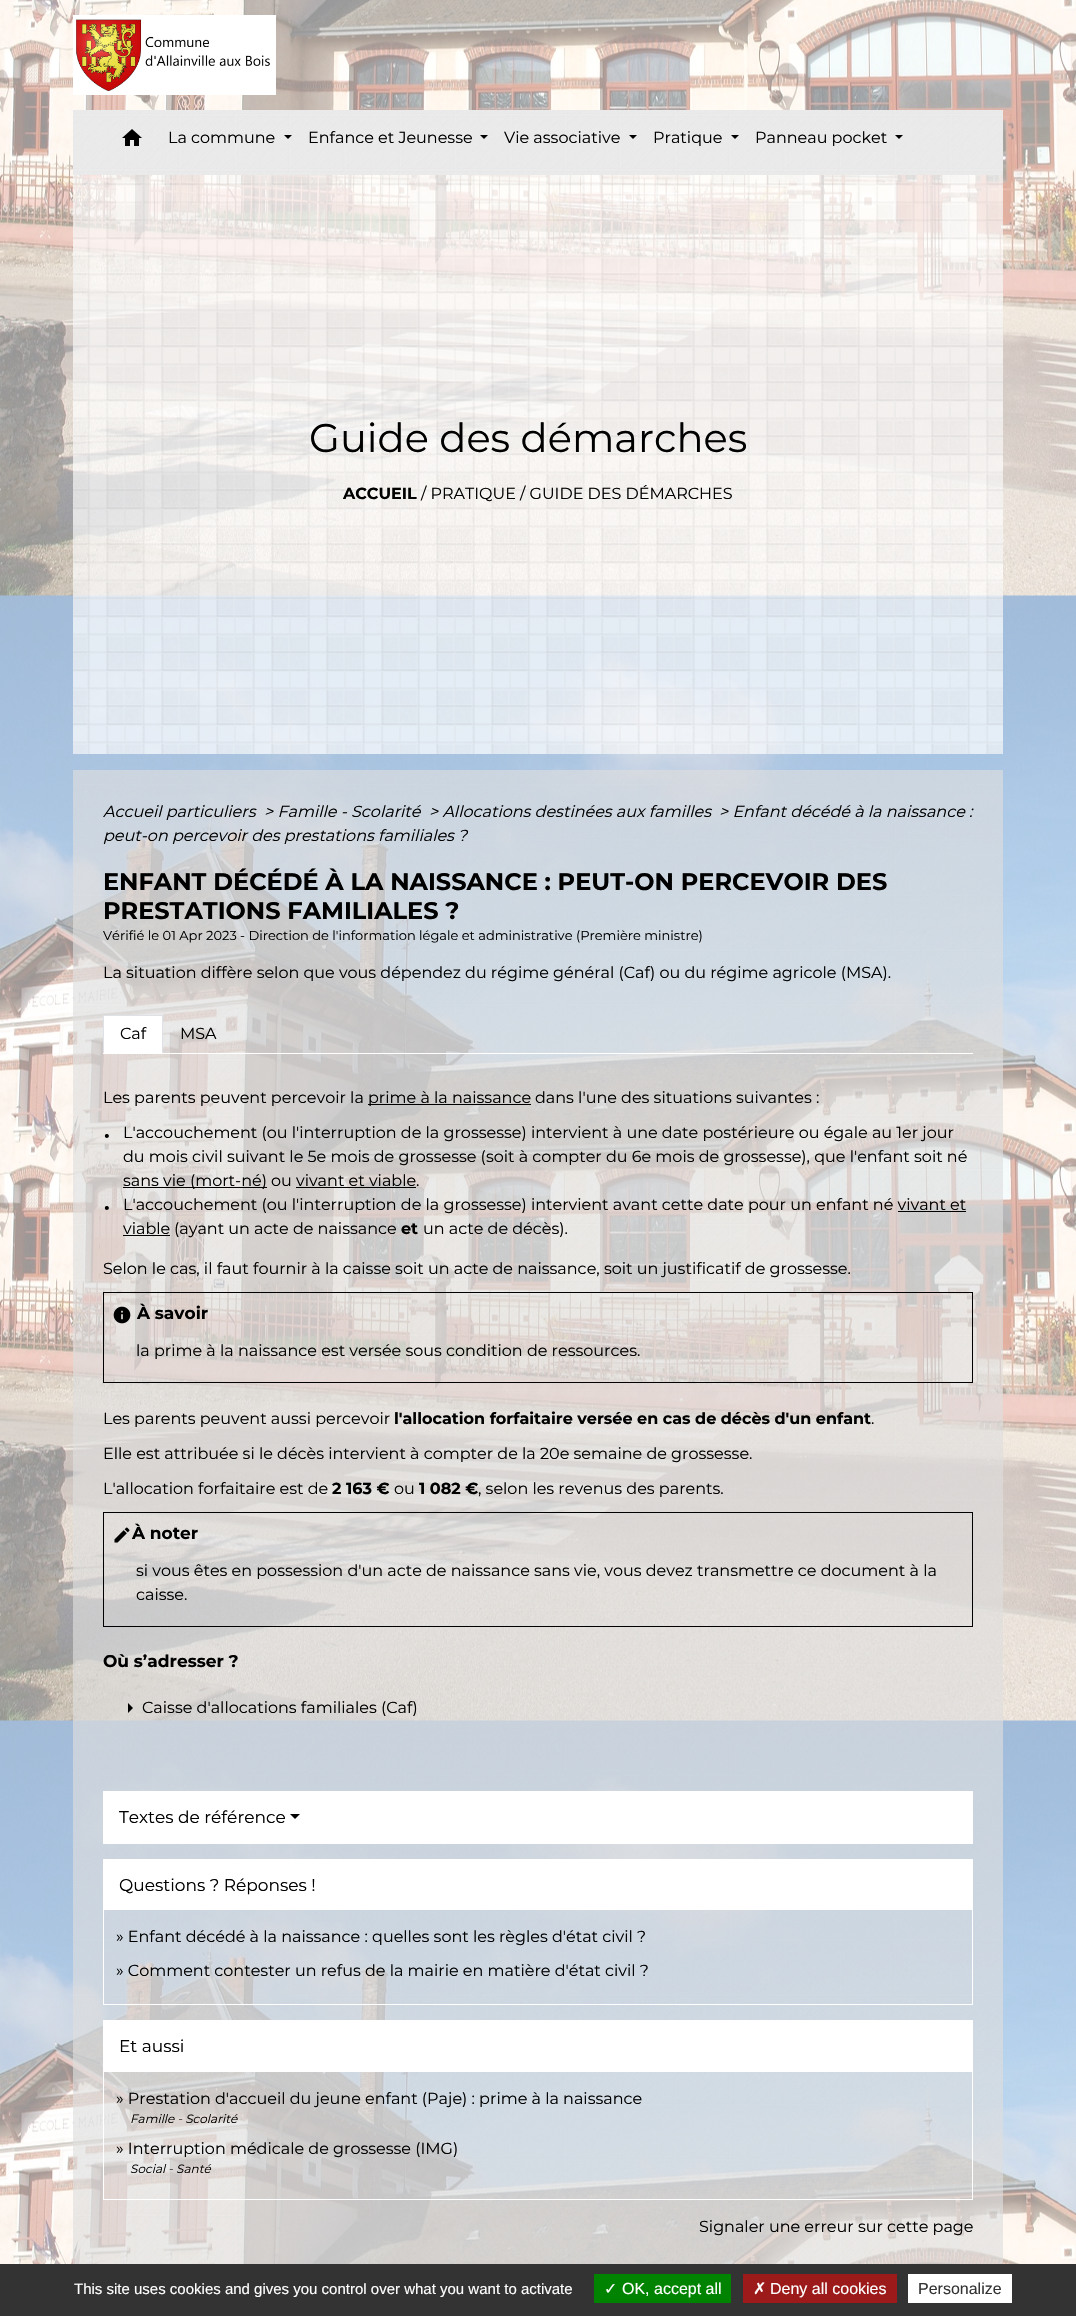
void draw(SkCanvas* canvas) {
    SkPaint paint;
    paint.setAntiAlias(true);
    auto face = [&](const char* family, int weight, float size, bool italic = false) {
        SkFontStyle style(weight, SkFontStyle::kNormal_Width,
            italic ? SkFontStyle::kItalic_Slant : SkFontStyle::kUpright_Slant);
        SkFont result(fontMgr->matchFamilyStyle(family, style), size);
        result.setSubpixel(true);
        return result;
    };
    auto write = [&](const char* s, float x, float y, const SkFont& font, SkColor color) {
        SkPaint ink(SkColor4f::FromColor(color));
        ink.setAntiAlias(true);
        canvas->drawString(s, x, y, font, ink);
    };
    auto block = [&](float x, float y, float w, float h, SkColor color) {
        SkPaint ink(SkColor4f::FromColor(color));
        ink.setAntiAlias(true);
        canvas->drawRect(SkRect::MakeXYWH(x, y, w, h), ink);
    };
    auto paste = [&](const char* path, float x, float y, float w, float h) {
        auto image = SkImages::DeferredFromEncodedData(SkData::MakeFromFileName(path));
        canvas->drawImageRect(image, SkRect::MakeXYWH(x, y, w, h), SkSamplingOptions());
    };
    canvas->clear(SK_ColorWHITE);
    paste("pic1.png", 0, 0, 1076, 2264);
    paste("pic2.png", 73, 15, 203, 80);
    block(73, 110, 930, 65, SK_ColorWHITE);
    paste("pic3.png", 73, 110, 930, 65);
    paste("pic4.png", 122, 129, 20, 17);
    auto kFont1 = face("Montserrat", 400, 16);
    write("La commune", 168, 143, kFont1, SK_ColorBLACK);
    paint.setColor(SK_ColorBLACK);
    canvas->drawPath(SkPathBuilder().moveTo(284, 135).lineTo(292, 135).lineTo(288, 139).close().detach(), paint);
    write("Enfance et Jeunesse", 308, 143, kFont1, SK_ColorBLACK);
    canvas->drawPath(SkPathBuilder().moveTo(480, 135).lineTo(488, 135).lineTo(484, 139).close().detach(), paint);
    write("Vie associative", 504, 143, kFont1, SK_ColorBLACK);
    canvas->drawPath(SkPathBuilder().moveTo(629, 135).lineTo(637, 135).lineTo(633, 139).close().detach(), paint);
    write("Pratique", 653, 143, kFont1, SK_ColorBLACK);
    canvas->drawPath(SkPathBuilder().moveTo(731, 135).lineTo(739, 135).lineTo(735, 139).close().detach(), paint);
    write("Panneau pocket", 755, 143, kFont1, SK_ColorBLACK);
    canvas->drawPath(SkPathBuilder().moveTo(895, 135).lineTo(903, 135).lineTo(899, 139).close().detach(), paint);
    block(73, 175, 930, 579, SkColorSetARGB(179, 255, 255, 255));
    paste("pic5.png", 73, 175, 930, 579);
    auto kFont2 = face("Montserrat", 400, 40);
    write("Guide des démarches", 309, 452, kFont2, SK_ColorBLACK);
    auto kFont3 = face("Montserrat", 700, 16);
    write("ACCUEIL", 343, 499, kFont3, SK_ColorBLACK);
    write("/ PRATIQUE", 421, 499, kFont1, SK_ColorBLACK);
    write("/ GUIDE DES DÉMARCHES", 520, 499, kFont1, SK_ColorBLACK);
    block(73, 770, 930, 1494, SkColorSetARGB(110, 255, 255, 255));
    paste("pic6.png", 73, 770, 930, 1494);
    auto kFont4 = face("Montserrat", 400, 16, true);
    write("Accueil particuliers", 103, 817, kFont4, SK_ColorBLACK);
    write("> Famille - Scolarité", 264, 817, kFont4, SK_ColorBLACK);
    write("> Allocations destinées aux familles", 429, 817, kFont4, SK_ColorBLACK);
    write("> Enfant décédé à la naissance :", 719, 817, kFont4, SK_ColorBLACK);
    write("peut-on percevoir des prestations familiales ?", 103, 841, kFont4, SK_ColorBLACK);
    auto kFont5 = face("Montserrat", 700, 24);
    write("ENFANT DÉCÉDÉ À LA NAISSANCE : PEUT-ON PERCEVOIR DES", 103, 890, kFont5, SK_ColorBLACK);
    write("PRESTATIONS FAMILIALES ?", 103, 919, kFont5, SK_ColorBLACK);
    auto kFont6 = face("Montserrat", 400, 13);
    write("Vérifié le 01 Apr 2023 - Direction de l'information légale et administrative (Première ministre)", 103, 940, kFont6, SK_ColorBLACK);
    write("La situation diffère selon que vous dépendez du régime général (Caf) ou du régime agricole (MSA).", 103, 978, kFont1, SK_ColorBLACK);
    block(103, 1053, 870, 1, SK_ColorWHITE);
    block(104, 1016, 58, 37, SK_ColorWHITE);
    block(103, 1015, 60, 1, SkColorSetRGB(222, 226, 230));
    block(162, 1015, 1, 38, SkColorSetRGB(222, 226, 230));
    block(103, 1015, 1, 38, SkColorSetRGB(222, 226, 230));
    write("Caf", 120, 1039, kFont1, SK_ColorBLACK);
    write("MSA", 180, 1039, kFont1, SK_ColorBLACK);
    write("Les parents peuvent percevoir la", 103, 1103, kFont1, SK_ColorBLACK);
    block(368, 1104, 163, 1, SK_ColorBLACK);
    write("prime à la naissance", 368, 1103, kFont1, SK_ColorBLACK);
    write("dans l'une des situations suivantes :", 535, 1103, kFont1, SK_ColorBLACK);
    auto kFont7 = face("Montserrat", 400, 26);
    write("•", 103, 1143, kFont7, SK_ColorBLACK);
    write("L'accouchement (ou l'interruption de la grossesse) intervient à une date postérieure ou égale au 1er jour", 123, 1138, kFont1, SK_ColorBLACK);
    write("du mois civil suivant le 5e mois de grossesse (soit à compter du 6e mois de grossesse), que l'enfant soit né", 123, 1162, kFont1, SK_ColorBLACK);
    block(123, 1187, 144, 1, SK_ColorBLACK);
    write("sans vie (mort-né)", 123, 1186, kFont1, SK_ColorBLACK);
    write("ou vivant et viable", 271, 1186, kFont1, SK_ColorBLACK);
    write(".", 416, 1186, kFont1, SK_ColorBLACK);
    block(296, 1187, 120, 1, SK_ColorBLACK);
    write("•", 103, 1215, kFont7, SK_ColorBLACK);
    write("L'accouchement (ou l'interruption de la grossesse) intervient avant cette date pour un enfant né vivant et", 123, 1210, kFont1, SK_ColorBLACK);
    write("viable", 123, 1234, kFont1, SK_ColorBLACK);
    block(898, 1211, 68, 1, SK_ColorBLACK);
    block(123, 1235, 47, 1, SK_ColorBLACK);
    write("(ayant un acte de naissance", 174, 1234, kFont1, SK_ColorBLACK);
    write("et", 401, 1234, kFont3, SK_ColorBLACK);
    write("un acte de décès).", 423, 1234, kFont1, SK_ColorBLACK);
    write("Selon le cas, il faut fournir à la caisse soit un acte de naissance, soit un justificatif de grossesse.", 103, 1274, kFont1, SK_ColorBLACK);
    paint.setStyle(SkPaint::kStroke_Style);
    paint.setStrokeWidth(1);
    canvas->drawRect(SkRect::MakeXYWH(103.5f, 1292.5f, 869, 90), paint);
    paste("pic7.png", 113, 1306, 18, 18);
    auto kFont8 = face("Montserrat", 700, 17);
    write("À savoir", 137, 1319, kFont8, SK_ColorBLACK);
    write("la prime à la naissance est versée sous condition de ressources.", 136, 1356, kFont1, SK_ColorBLACK);
    write("Les parents peuvent aussi percevoir", 103, 1424, kFont1, SK_ColorBLACK);
    write("l'allocation forfaitaire versée en cas de décès d'un enfant", 394, 1424, kFont3, SK_ColorBLACK);
    write(".", 871, 1424, kFont1, SK_ColorBLACK);
    write("Elle est attribuée si le décès intervient à compter de la 20e semaine de grossesse.", 103, 1459, kFont1, SK_ColorBLACK);
    write("L'allocation forfaitaire est de", 103, 1494, kFont1, SK_ColorBLACK);
    write("2 163 €", 332, 1494, kFont3, SK_ColorBLACK);
    write("ou", 394, 1494, kFont1, SK_ColorBLACK);
    write("1 082 €", 419, 1494, kFont3, SK_ColorBLACK);
    write(", selon les revenus des parents.", 478, 1494, kFont1, SK_ColorBLACK);
    canvas->drawRect(SkRect::MakeXYWH(103.5f, 1512.5f, 869, 114), paint);
    paste("pic8.png", 114, 1527, 16, 16);
    write("À noter", 132, 1539, kFont8, SK_ColorBLACK);
    write("si vous êtes en possession d'un acte de naissance sans vie, vous devez transmettre ce document à la", 136, 1576, kFont1, SK_ColorBLACK);
    write("caisse.", 136, 1600, kFont1, SK_ColorBLACK);
    write("Où s’adresser ?", 103, 1667, kFont8, SK_ColorBLACK);
    paint.setStyle(SkPaint::kFill_Style);
    canvas->drawPath(SkPathBuilder().moveTo(128, 1713).lineTo(128, 1703).lineTo(133, 1708).close().detach(), paint);
    write("Caisse d'allocations familiales (Caf)", 142, 1713, kFont1, SK_ColorBLACK);
    paint.setStyle(SkPaint::kStroke_Style);
    paint.setColor(SK_ColorWHITE);
    canvas->drawRect(SkRect::MakeXYWH(103.5f, 1791.5f, 869, 52), paint);
    block(104, 1792, 868, 51, SK_ColorWHITE);
    auto kFont9 = face("Montserrat", 400, 17);
    write("Textes de référence", 119, 1823, kFont9, SK_ColorBLACK);
    paint.setStyle(SkPaint::kFill_Style);
    paint.setColor(SK_ColorBLACK);
    canvas->drawPath(SkPathBuilder().moveTo(290, 1814).lineTo(300, 1814).lineTo(295, 1819).close().detach(), paint);
    paint.setStyle(SkPaint::kStroke_Style);
    paint.setColor(SK_ColorWHITE);
    canvas->drawRect(SkRect::MakeXYWH(103.5f, 1859.5f, 869, 145), paint);
    block(104, 1860, 868, 50, SK_ColorWHITE);
    write("Questions ? Réponses !", 119, 1891, kFont9, SK_ColorBLACK);
    write("» Enfant décédé à la naissance : quelles sont les règles d'état civil ?", 116, 1942, kFont1, SK_ColorBLACK);
    write("» Comment contester un refus de la mairie en matière d'état civil ?", 116, 1976, kFont1, SK_ColorBLACK);
    canvas->drawRect(SkRect::MakeXYWH(103.5f, 2020.5f, 869, 179), paint);
    block(104, 2021, 868, 51, SK_ColorWHITE);
    write("Et aussi", 119, 2052, kFont9, SK_ColorBLACK);
    write("» Prestation d'accueil du jeune enfant (Paje) : prime à la naissance", 116, 2104, kFont1, SK_ColorBLACK);
    auto kFont10 = face("Montserrat", 400, 12, true);
    write("Famille - Scolarité", 130, 2123, kFont10, SK_ColorBLACK);
    write("» Interruption médicale de grossesse (IMG)", 116, 2154, kFont1, SK_ColorBLACK);
    write("Social - Santé", 130, 2173, kFont10, SK_ColorBLACK);
    write("Signaler une erreur sur cette page", 699, 2232, kFont1, SK_ColorBLACK);
    block(0, 2264, 1076, 52, SkColorSetRGB(51, 51, 51));
    auto kFont11 = face("Liberation Sans", 400, 15);
    write("This site uses cookies and gives you control over what you want to activate", 74, 2294, kFont11, SK_ColorWHITE);
    block(594, 2274, 137, 29, SkColorSetRGB(0, 131, 0));
    auto kFont12 = face("DejaVu Sans", 400, 16);
    write("✓", 604, 2294, kFont12, SK_ColorWHITE);
    auto kFont13 = face("Liberation Sans", 400, 16);
    write("OK, accept all", 622, 2294, kFont13, SK_ColorWHITE);
    block(743, 2274, 154, 29, SkColorSetRGB(156, 26, 26));
    write("✗", 753, 2294, kFont12, SK_ColorWHITE);
    write("Deny all cookies", 770, 2294, kFont13, SK_ColorWHITE);
    block(908, 2274, 104, 29, SK_ColorWHITE);
    write("Personalize", 918, 2294, kFont13, SkColorSetRGB(51, 51, 51));
}
